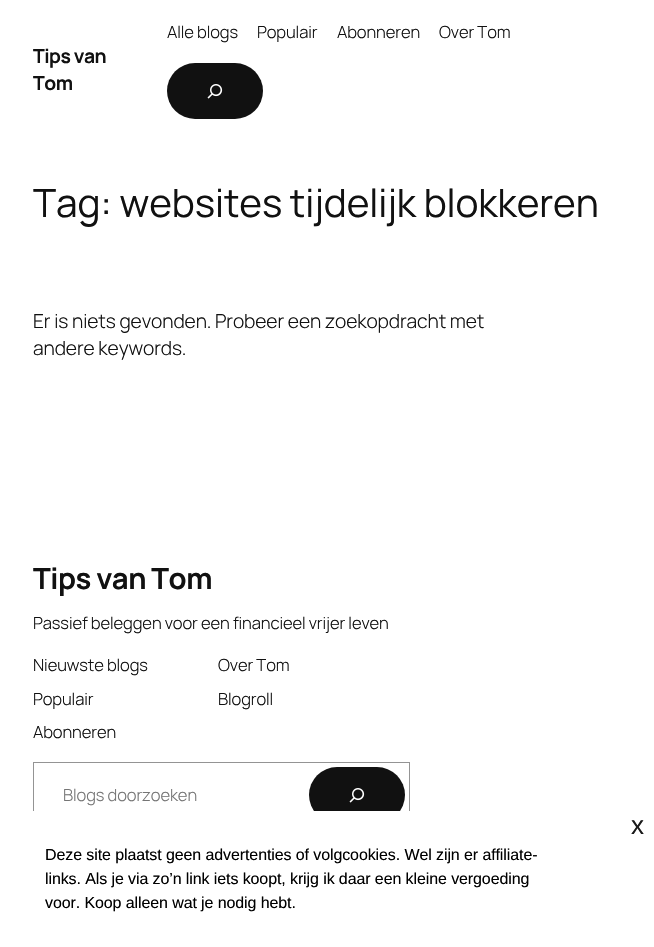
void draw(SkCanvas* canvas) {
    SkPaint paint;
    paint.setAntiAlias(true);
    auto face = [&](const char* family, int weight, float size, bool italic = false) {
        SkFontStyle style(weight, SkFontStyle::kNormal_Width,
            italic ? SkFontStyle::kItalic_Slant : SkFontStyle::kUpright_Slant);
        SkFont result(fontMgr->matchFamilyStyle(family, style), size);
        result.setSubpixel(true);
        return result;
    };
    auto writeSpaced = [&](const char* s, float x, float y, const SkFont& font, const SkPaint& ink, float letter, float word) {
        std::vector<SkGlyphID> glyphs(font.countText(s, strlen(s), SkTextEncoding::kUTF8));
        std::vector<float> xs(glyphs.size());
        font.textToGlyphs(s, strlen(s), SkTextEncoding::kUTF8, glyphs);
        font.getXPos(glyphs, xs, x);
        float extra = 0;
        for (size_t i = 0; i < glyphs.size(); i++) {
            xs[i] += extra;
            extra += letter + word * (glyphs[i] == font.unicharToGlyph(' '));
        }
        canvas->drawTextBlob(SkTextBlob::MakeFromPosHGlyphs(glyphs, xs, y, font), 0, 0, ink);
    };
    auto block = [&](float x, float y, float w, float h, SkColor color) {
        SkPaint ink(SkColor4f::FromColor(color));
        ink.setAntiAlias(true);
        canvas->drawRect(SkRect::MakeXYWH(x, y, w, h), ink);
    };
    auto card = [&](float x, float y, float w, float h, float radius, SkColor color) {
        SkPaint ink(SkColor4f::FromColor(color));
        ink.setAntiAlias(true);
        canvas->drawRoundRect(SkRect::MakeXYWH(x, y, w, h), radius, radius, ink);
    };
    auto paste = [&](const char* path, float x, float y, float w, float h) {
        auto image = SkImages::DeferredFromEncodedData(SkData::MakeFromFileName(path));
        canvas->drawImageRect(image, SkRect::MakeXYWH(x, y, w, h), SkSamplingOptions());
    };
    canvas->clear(SK_ColorWHITE);
    auto kFont1 = face("Manrope", 300, 16.65f);
    paint.setColor(SkColorSetRGB(17, 17, 17));
    writeSpaced("Alle blogs", 167, 38, kFont1, paint, -0.1f, 0);
    writeSpaced("Populair", 257, 38, kFont1, paint, -0.1f, 0);
    writeSpaced("Abonneren", 337, 38, kFont1, paint, -0.1f, 0);
    writeSpaced("Over Tom", 439, 38, kFont1, paint, -0.1f, 0);
    card(167, 63, 96, 56, 28, SkColorSetRGB(17, 17, 17));
    paste("pic1.png", 207, 84, 16, 15);
    auto kFont2 = face("Manrope", 700, 19.3f);
    writeSpaced("Tips van", 33, 63, kFont2, paint, -0.5f, 0);
    writeSpaced("Tom", 33, 90, kFont2, paint, -0.5f, 0);
    auto kFont3 = face("Manrope", 400, 38.8f);
    writeSpaced("Tag: websites tijdelijk blokkeren", 33, 217, kFont3, paint, -0.1f, 0);
    auto kFont4 = face("Manrope", 300, 19.3f);
    writeSpaced("Er is niets gevonden. Probeer een zoekopdracht met", 33, 328, kFont4, paint, -0.1f, 0);
    writeSpaced("andere keywords.", 33, 355, kFont4, paint, -0.1f, 0);
    auto kFont5 = face("Manrope", 700, 29.25f);
    writeSpaced("Tips van Tom", 33, 589, kFont5, paint, -0.5f, 0);
    writeSpaced("Passief beleggen voor een financieel vrijer leven", 33, 629, kFont1, paint, -0.1f, 0);
    writeSpaced("Nieuwste blogs", 33, 671, kFont1, paint, -0.1f, 0);
    writeSpaced("Populair", 33, 705, kFont1, paint, -0.1f, 0);
    writeSpaced("Abonneren", 33, 738, kFont1, paint, -0.1f, 0);
    writeSpaced("Over Tom", 218, 671, kFont1, paint, -0.1f, 0);
    writeSpaced("Blogroll", 218, 705, kFont1, paint, -0.1f, 0);
    paint.setStyle(SkPaint::kStroke_Style);
    paint.setStrokeWidth(1);
    paint.setColor(SkColorSetRGB(148, 148, 148));
    canvas->drawRect(SkRect::MakeXYWH(33.5f, 762.5f, 376, 65), paint);
    paint.setStyle(SkPaint::kFill_Style);
    paint.setColor(SkColorSetRGB(117, 117, 117));
    writeSpaced("Blogs doorzoeken", 63, 801, kFont1, paint, -0.1f, 0);
    card(309, 767, 96, 56, 28, SkColorSetRGB(17, 17, 17));
    paste("pic1.png", 349, 788, 16, 15);
    block(33, 811, 377, 17, SK_ColorWHITE);
    auto kFont6 = face("Liberation Sans", 400, 26);
    paint.setColor(SkColorSetRGB(26, 26, 26));
    writeSpaced("x", 631, 834, kFont6, paint, -0.1f, 0);
    auto kFont7 = face("Liberation Sans", 400, 16);
    paint.setColor(SK_ColorBLACK);
    writeSpaced("Deze site plaatst geen advertenties of volgcookies. Wel zijn er affiliate-", 45, 860, kFont7, paint, -0.1f, 0);
    writeSpaced("links. Als je via zo’n link iets koopt, krijg ik daar een kleine vergoeding", 45, 884, kFont7, paint, -0.1f, 0);
    writeSpaced("voor. Koop alleen wat je nodig hebt.", 45, 908, kFont7, paint, -0.1f, 0);
}
